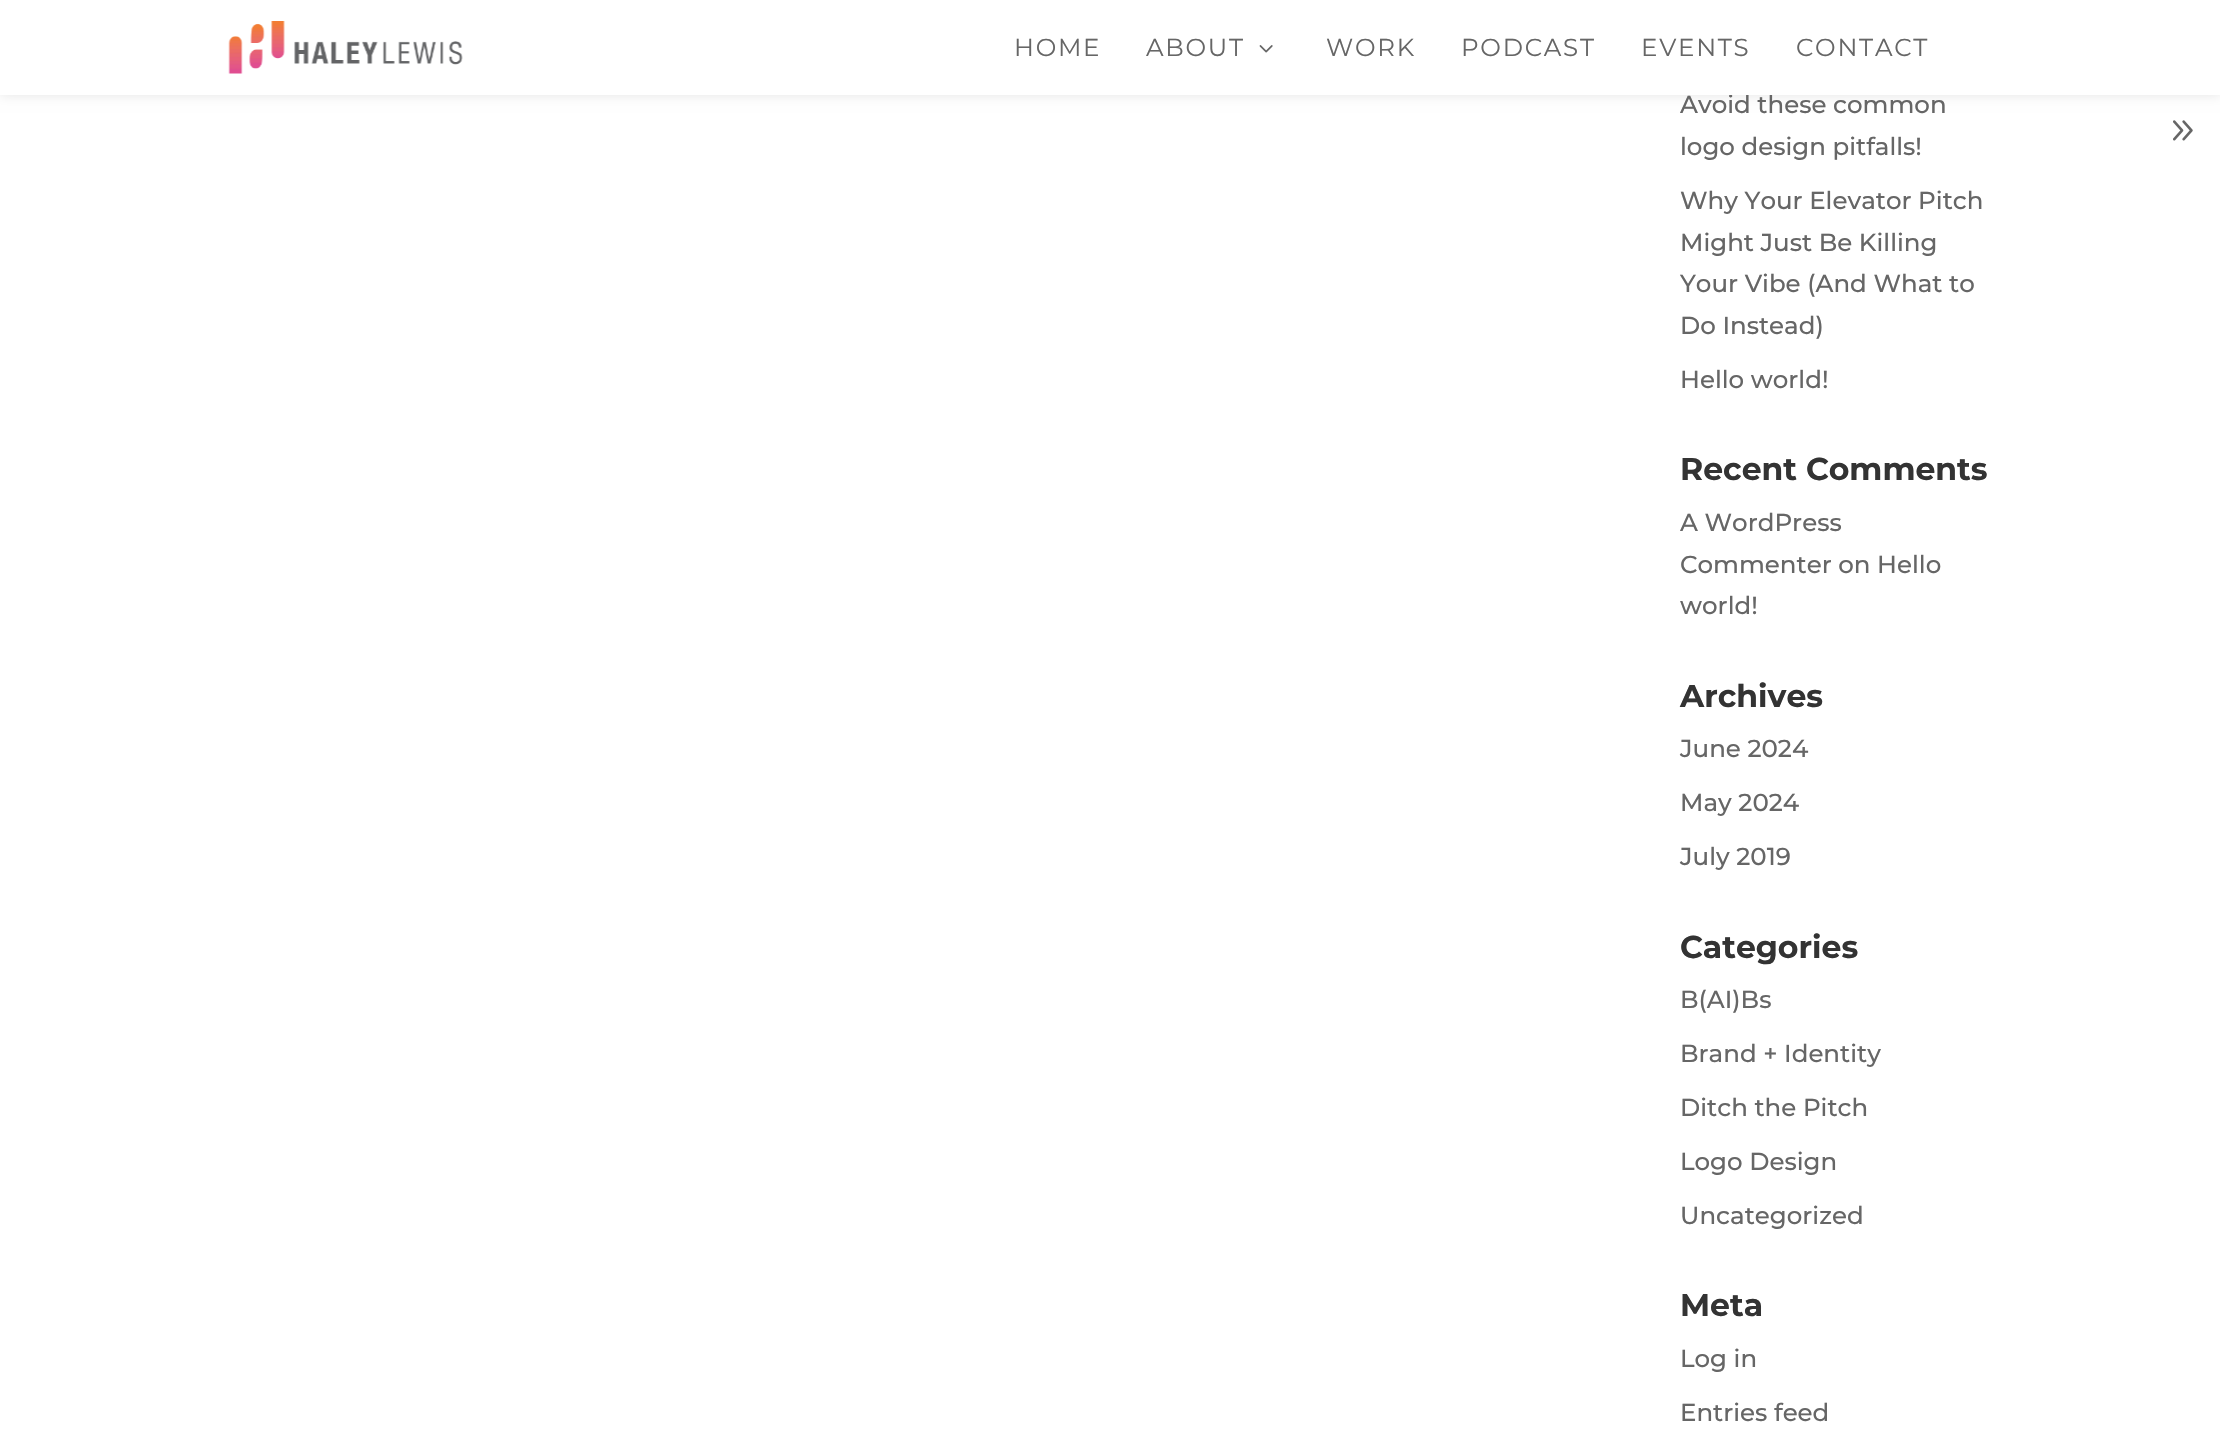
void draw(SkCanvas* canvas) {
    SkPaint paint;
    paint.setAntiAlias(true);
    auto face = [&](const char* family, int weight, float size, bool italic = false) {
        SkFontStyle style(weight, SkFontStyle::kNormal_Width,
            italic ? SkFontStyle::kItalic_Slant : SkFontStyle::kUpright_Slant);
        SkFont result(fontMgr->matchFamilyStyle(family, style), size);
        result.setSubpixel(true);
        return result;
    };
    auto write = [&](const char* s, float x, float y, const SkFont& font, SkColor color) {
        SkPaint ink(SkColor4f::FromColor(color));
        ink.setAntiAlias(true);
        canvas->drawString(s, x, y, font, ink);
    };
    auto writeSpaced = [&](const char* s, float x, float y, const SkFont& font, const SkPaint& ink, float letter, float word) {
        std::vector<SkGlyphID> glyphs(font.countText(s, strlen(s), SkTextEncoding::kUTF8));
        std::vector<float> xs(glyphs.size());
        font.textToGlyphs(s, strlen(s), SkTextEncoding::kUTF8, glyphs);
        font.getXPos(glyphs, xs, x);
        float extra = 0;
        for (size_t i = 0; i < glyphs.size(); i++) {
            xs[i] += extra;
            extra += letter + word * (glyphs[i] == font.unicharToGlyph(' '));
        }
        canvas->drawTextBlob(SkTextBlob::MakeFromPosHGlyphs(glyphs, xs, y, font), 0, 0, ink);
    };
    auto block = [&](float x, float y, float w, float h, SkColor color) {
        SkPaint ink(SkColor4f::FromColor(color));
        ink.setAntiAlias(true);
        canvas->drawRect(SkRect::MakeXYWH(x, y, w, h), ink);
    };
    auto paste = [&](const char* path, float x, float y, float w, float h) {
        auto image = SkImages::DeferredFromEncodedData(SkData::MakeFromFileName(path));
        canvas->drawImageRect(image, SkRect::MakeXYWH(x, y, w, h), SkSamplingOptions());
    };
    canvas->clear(SK_ColorWHITE);
    paint.setColor(SkColorSetARGB(26, 0, 0, 0));
    paint.setMaskFilter(SkMaskFilter::MakeBlur(kNormal_SkBlurStyle, 6));
    canvas->drawRect(SkRect::MakeXYWH(0, 0, 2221, 95), paint);
    paint.setMaskFilter(nullptr);
    auto kFont1 = face("Montserrat", 500, 24.5f);
    write("Avoid these common", 1680, 113, kFont1, SkColorSetRGB(102, 102, 102));
    block(0, 0, 2220, 95, SK_ColorWHITE);
    paste("pic1.png", 228, 21, 235, 53);
    auto kFont2 = face("Montserrat", 400, 24.5f);
    paint.setColor(SkColorSetRGB(102, 102, 102));
    writeSpaced("HOME", 1014, 56, kFont2, paint, 1.75f, 0);
    writeSpaced("ABOUT", 1146, 56, kFont2, paint, 1.75f, 0);
    paste("pic2.png", 1259, 45, 14, 8);
    writeSpaced("WORK", 1326, 56, kFont2, paint, 1.75f, 0);
    writeSpaced("PODCAST", 1461, 56, kFont2, paint, 1.75f, 0);
    writeSpaced("EVENTS", 1641, 56, kFont2, paint, 1.75f, 0);
    writeSpaced("CONTACT", 1796, 56, kFont2, paint, 1.75f, 0);
    write("logo design pitfalls!", 1680, 155, kFont1, SkColorSetRGB(102, 102, 102));
    write("Why Your Elevator Pitch", 1680, 209, kFont1, SkColorSetRGB(102, 102, 102));
    write("Might Just Be Killing", 1680, 251, kFont1, SkColorSetRGB(102, 102, 102));
    write("Your Vibe (And What to", 1680, 292, kFont1, SkColorSetRGB(102, 102, 102));
    write("Do Instead)", 1680, 334, kFont1, SkColorSetRGB(102, 102, 102));
    write("Hello world!", 1680, 388, kFont1, SkColorSetRGB(102, 102, 102));
    auto kFont3 = face("Montserrat", 700, 31.5f);
    write("Recent Comments", 1680, 480, kFont3, SkColorSetRGB(51, 51, 51));
    write("A WordPress", 1680, 531, kFont1, SkColorSetRGB(102, 102, 102));
    write("Commenter on Hello", 1680, 573, kFont1, SkColorSetRGB(102, 102, 102));
    write("world!", 1680, 614, kFont1, SkColorSetRGB(102, 102, 102));
    write("Archives", 1680, 707, kFont3, SkColorSetRGB(51, 51, 51));
    write("June 2024", 1680, 757, kFont1, SkColorSetRGB(102, 102, 102));
    write("May 2024", 1680, 811, kFont1, SkColorSetRGB(102, 102, 102));
    write("July 2019", 1680, 865, kFont1, SkColorSetRGB(102, 102, 102));
    write("Categories", 1680, 958, kFont3, SkColorSetRGB(51, 51, 51));
    write("B(AI)Bs", 1680, 1008, kFont1, SkColorSetRGB(102, 102, 102));
    write("Brand + Identity", 1680, 1062, kFont1, SkColorSetRGB(102, 102, 102));
    write("Ditch the Pitch", 1680, 1116, kFont1, SkColorSetRGB(102, 102, 102));
    write("Logo Design", 1680, 1170, kFont1, SkColorSetRGB(102, 102, 102));
    write("Uncategorized", 1680, 1224, kFont1, SkColorSetRGB(102, 102, 102));
    write("Meta", 1680, 1316, kFont3, SkColorSetRGB(51, 51, 51));
    write("Log in", 1680, 1367, kFont1, SkColorSetRGB(102, 102, 102));
    write("Entries feed", 1680, 1421, kFont1, SkColorSetRGB(102, 102, 102));
    paste("pic3.png", 2173, 120, 20, 21);
}
